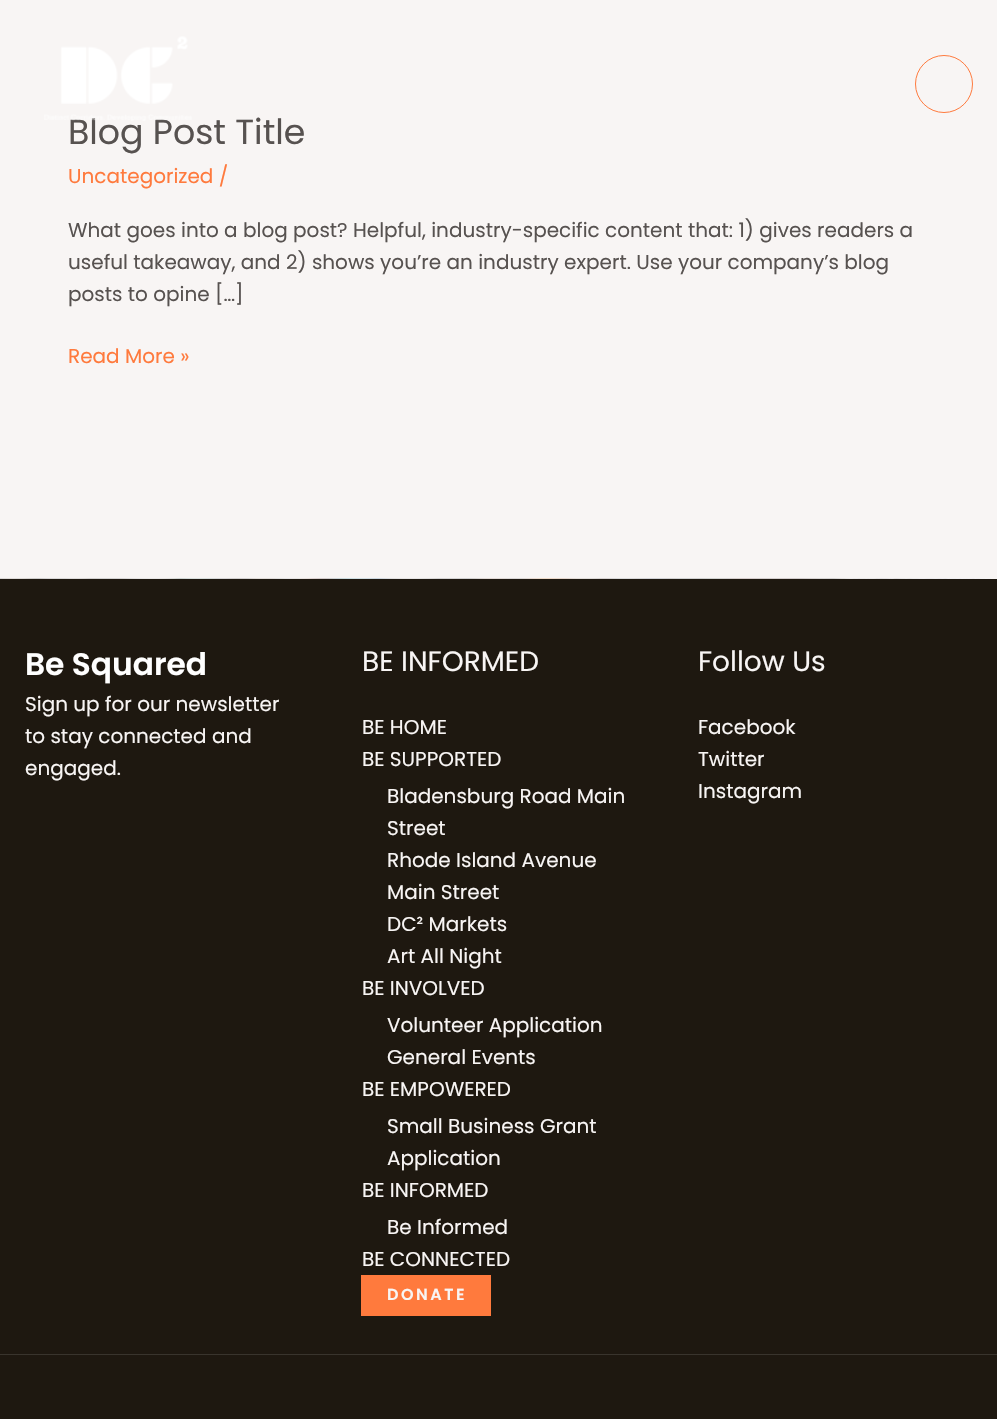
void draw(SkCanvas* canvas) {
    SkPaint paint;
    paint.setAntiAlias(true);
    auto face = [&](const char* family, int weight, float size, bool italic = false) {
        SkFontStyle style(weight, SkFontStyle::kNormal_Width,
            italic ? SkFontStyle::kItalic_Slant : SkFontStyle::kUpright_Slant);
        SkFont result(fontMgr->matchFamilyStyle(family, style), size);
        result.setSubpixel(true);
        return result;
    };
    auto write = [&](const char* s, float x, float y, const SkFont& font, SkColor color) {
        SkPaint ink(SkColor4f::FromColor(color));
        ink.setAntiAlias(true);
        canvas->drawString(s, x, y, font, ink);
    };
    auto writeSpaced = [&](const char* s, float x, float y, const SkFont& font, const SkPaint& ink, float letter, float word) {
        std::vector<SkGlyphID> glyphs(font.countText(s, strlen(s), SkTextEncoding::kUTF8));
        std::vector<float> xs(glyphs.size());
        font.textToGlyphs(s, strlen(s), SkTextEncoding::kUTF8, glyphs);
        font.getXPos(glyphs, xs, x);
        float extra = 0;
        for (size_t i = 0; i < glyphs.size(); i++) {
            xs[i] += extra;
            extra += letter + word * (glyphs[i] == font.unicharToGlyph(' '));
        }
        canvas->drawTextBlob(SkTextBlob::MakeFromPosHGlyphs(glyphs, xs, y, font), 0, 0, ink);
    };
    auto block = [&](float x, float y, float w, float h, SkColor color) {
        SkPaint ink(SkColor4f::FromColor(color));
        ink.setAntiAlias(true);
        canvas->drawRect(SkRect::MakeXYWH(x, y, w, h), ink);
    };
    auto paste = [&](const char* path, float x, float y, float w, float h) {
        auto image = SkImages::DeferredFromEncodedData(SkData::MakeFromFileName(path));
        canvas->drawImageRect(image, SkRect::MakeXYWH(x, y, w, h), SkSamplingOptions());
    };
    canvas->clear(SkColorSetRGB(248, 245, 244));
    auto kFont1 = face("Poppins", 400, 34.75f);
    write("Blog Post Title", 68, 144, kFont1, SkColorSetRGB(87, 82, 80));
    paste("pic1.png", 44, 36, 148, 85);
    paint.setStyle(SkPaint::kStroke_Style);
    paint.setStrokeWidth(1);
    paint.setColor(SkColorSetRGB(255, 122, 61));
    canvas->drawCircle(944, 84, 28.5f, paint);
    auto kFont2 = face("Poppins", 400, 20);
    write("Uncategorized /", 68, 183, kFont2, SkColorSetRGB(255, 122, 61));
    write("What goes into a blog post? Helpful, industry-specific content that: 1) gives readers a", 68, 237, kFont2, SkColorSetRGB(87, 82, 80));
    write("useful takeaway, and 2) shows you’re an industry expert. Use your company’s blog", 68, 269, kFont2, SkColorSetRGB(87, 82, 80));
    write("posts to opine […]", 68, 301, kFont2, SkColorSetRGB(87, 82, 80));
    write("Read More »", 68, 363, kFont2, SkColorSetRGB(255, 122, 61));
    paste("pic2.png", 0, 578, 991, 1);
    block(0, 579, 997, 775, SkColorSetRGB(30, 24, 16));
    auto kFont3 = face("Poppins", 600, 31.25f);
    write("Be Squared", 25, 675, kFont3, SK_ColorWHITE);
    write("Sign up for our newsletter", 25, 711, kFont2, SkColorSetRGB(248, 245, 244));
    write("to stay connected and", 25, 743, kFont2, SkColorSetRGB(248, 245, 244));
    write("engaged.", 25, 775, kFont2, SkColorSetRGB(248, 245, 244));
    auto kFont4 = face("Poppins", 400, 28);
    write("BE INFORMED", 362, 671, kFont4, SkColorSetRGB(248, 245, 244));
    write("BE HOME", 362, 734, kFont2, SkColorSetRGB(248, 245, 244));
    write("BE SUPPORTED", 362, 766, kFont2, SkColorSetRGB(248, 245, 244));
    write("Bladensburg Road Main", 387, 803, kFont2, SkColorSetRGB(248, 245, 244));
    write("Street", 387, 835, kFont2, SkColorSetRGB(248, 245, 244));
    write("Rhode Island Avenue", 387, 867, kFont2, SkColorSetRGB(248, 245, 244));
    write("Main Street", 387, 899, kFont2, SkColorSetRGB(248, 245, 244));
    write("DC² Markets", 387, 931, kFont2, SkColorSetRGB(248, 245, 244));
    write("Art All Night", 387, 963, kFont2, SkColorSetRGB(248, 245, 244));
    write("BE INVOLVED", 362, 995, kFont2, SkColorSetRGB(248, 245, 244));
    write("Volunteer Application", 387, 1032, kFont2, SkColorSetRGB(248, 245, 244));
    write("General Events", 387, 1064, kFont2, SkColorSetRGB(248, 245, 244));
    write("BE EMPOWERED", 362, 1096, kFont2, SkColorSetRGB(248, 245, 244));
    write("Small Business Grant", 387, 1133, kFont2, SkColorSetRGB(248, 245, 244));
    write("Application", 387, 1165, kFont2, SkColorSetRGB(248, 245, 244));
    write("BE INFORMED", 362, 1197, kFont2, SkColorSetRGB(248, 245, 244));
    write("Be Informed", 387, 1234, kFont2, SkColorSetRGB(248, 245, 244));
    write("BE CONNECTED", 362, 1266, kFont2, SkColorSetRGB(248, 245, 244));
    block(361, 1275, 130, 41, SkColorSetRGB(255, 122, 61));
    auto kFont5 = face("Poppins", 600, 16);
    paint.setStyle(SkPaint::kFill_Style);
    paint.setColor(SkColorSetRGB(248, 245, 244));
    writeSpaced("DONATE", 387, 1300, kFont5, paint, 2.5f, 0);
    write("Follow Us", 698, 671, kFont4, SkColorSetRGB(248, 245, 244));
    write("Facebook", 698, 734, kFont2, SkColorSetRGB(248, 245, 244));
    write("Twitter", 698, 766, kFont2, SkColorSetRGB(248, 245, 244));
    write("Instagram", 698, 798, kFont2, SkColorSetRGB(248, 245, 244));
    block(0, 1355, 997, 64, SkColorSetRGB(30, 24, 16));
    block(0, 1354, 997, 1, SkColorSetRGB(57, 52, 45));
}
